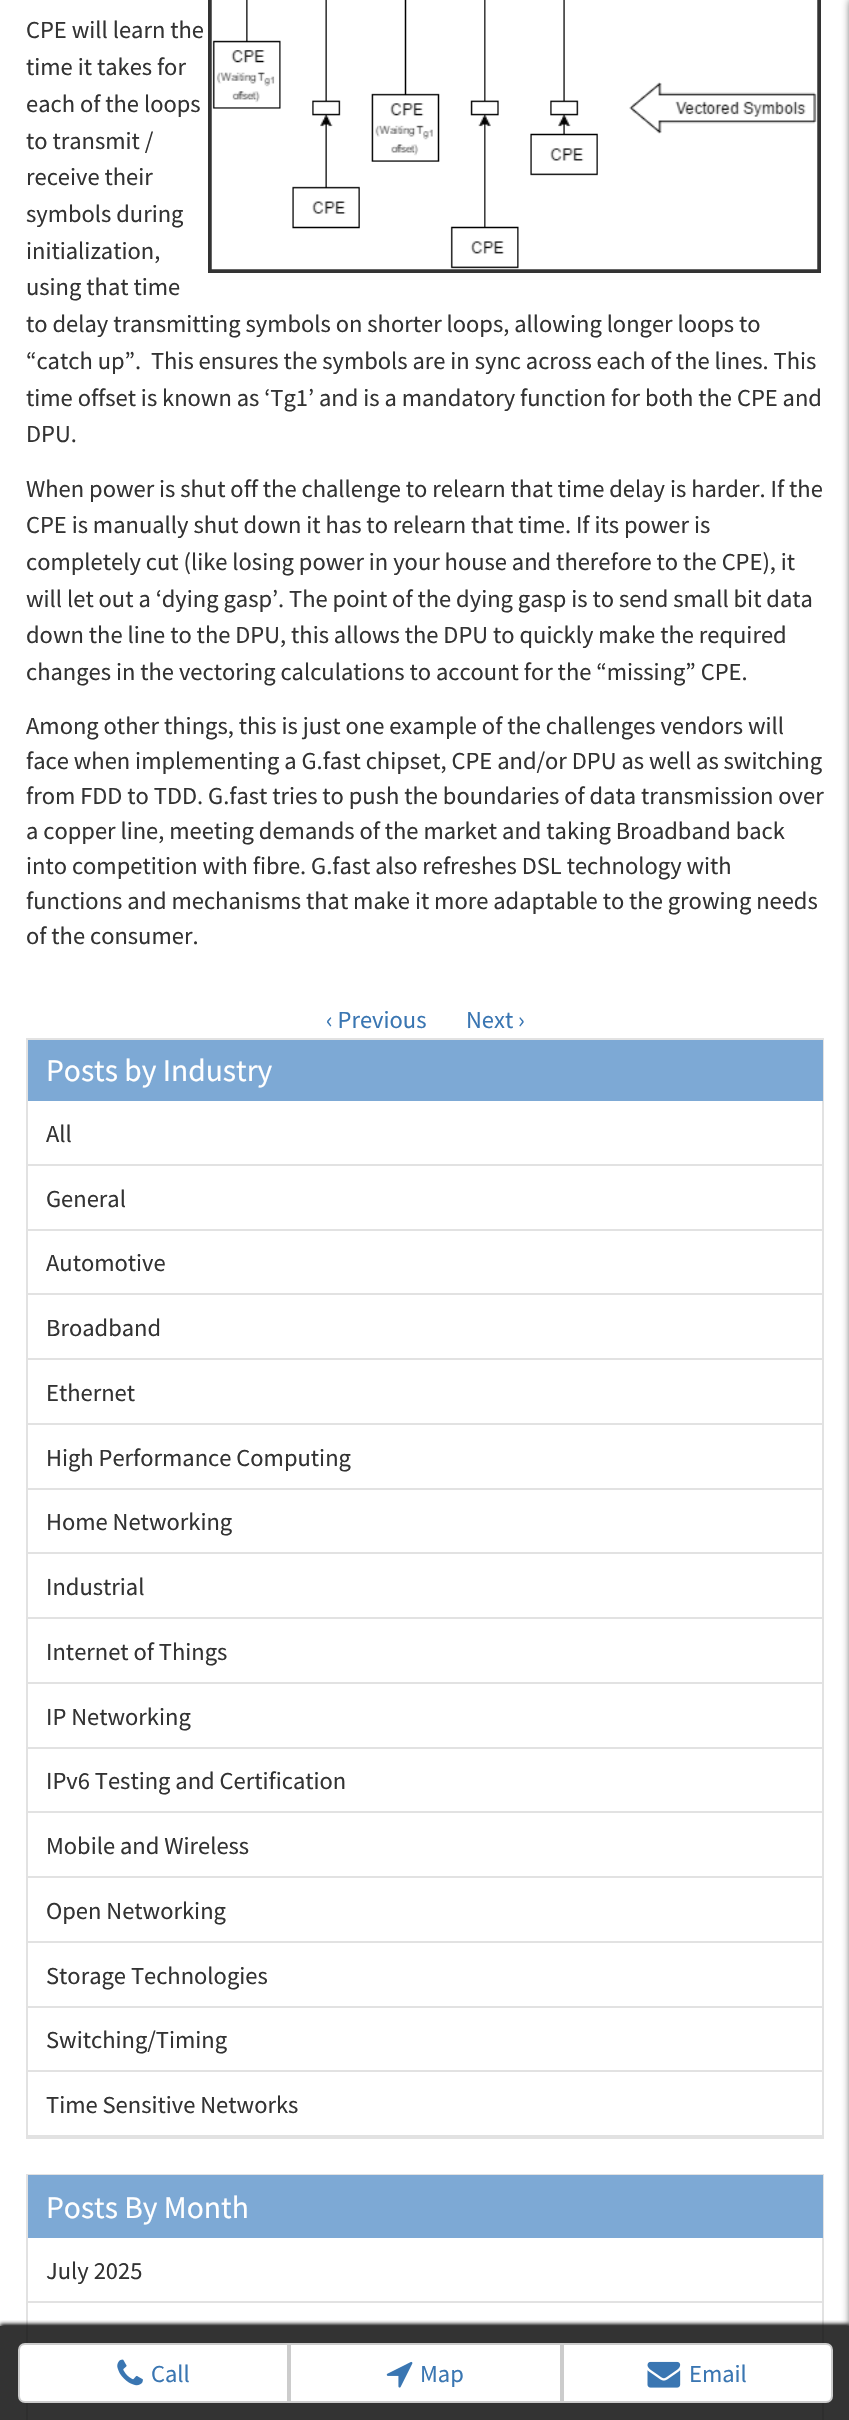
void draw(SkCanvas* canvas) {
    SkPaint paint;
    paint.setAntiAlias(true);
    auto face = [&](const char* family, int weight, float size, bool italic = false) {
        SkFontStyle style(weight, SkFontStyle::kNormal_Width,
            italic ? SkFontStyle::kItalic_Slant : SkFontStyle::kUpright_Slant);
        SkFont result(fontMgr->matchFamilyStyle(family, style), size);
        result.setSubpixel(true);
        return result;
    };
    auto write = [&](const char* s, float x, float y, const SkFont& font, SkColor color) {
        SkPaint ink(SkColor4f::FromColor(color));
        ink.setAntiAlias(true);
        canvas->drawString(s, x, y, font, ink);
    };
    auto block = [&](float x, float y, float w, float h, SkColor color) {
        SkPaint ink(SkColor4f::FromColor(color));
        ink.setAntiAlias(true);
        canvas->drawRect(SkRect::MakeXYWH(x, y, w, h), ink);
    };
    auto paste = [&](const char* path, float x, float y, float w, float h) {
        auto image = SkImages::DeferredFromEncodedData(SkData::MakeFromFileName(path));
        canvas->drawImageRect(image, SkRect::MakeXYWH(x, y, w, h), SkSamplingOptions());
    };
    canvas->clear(SK_ColorWHITE);
    auto kFont1 = face("Source Sans Pro", 400, 24.5f);
    write("CPE will learn the", 26, 38, kFont1, SkColorSetRGB(51, 51, 51));
    paint.setStyle(SkPaint::kStroke_Style);
    paint.setStrokeWidth(4);
    paint.setColor(SkColorSetRGB(51, 51, 51));
    canvas->drawRect(SkRect::MakeXYWH(210, -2, 609, 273), paint);
    paste("pic1.png", 211, 0, 607, 270);
    write("time it takes for", 26, 75, kFont1, SkColorSetRGB(51, 51, 51));
    write("each of the loops", 26, 112, kFont1, SkColorSetRGB(51, 51, 51));
    write("to transmit /", 26, 149, kFont1, SkColorSetRGB(51, 51, 51));
    write("receive their", 26, 185, kFont1, SkColorSetRGB(51, 51, 51));
    write("symbols during", 26, 222, kFont1, SkColorSetRGB(51, 51, 51));
    write("initialization,", 26, 259, kFont1, SkColorSetRGB(51, 51, 51));
    write("using that time", 26, 295, kFont1, SkColorSetRGB(51, 51, 51));
    write("to delay transmitting symbols on shorter loops, allowing longer loops to", 26, 332, kFont1, SkColorSetRGB(51, 51, 51));
    write("“catch up”.  This ensures the symbols are in sync across each of the lines. This", 26, 369, kFont1, SkColorSetRGB(51, 51, 51));
    write("time offset is known as ‘Tg1’ and is a mandatory function for both the CPE and", 26, 406, kFont1, SkColorSetRGB(51, 51, 51));
    write("DPU.", 26, 442, kFont1, SkColorSetRGB(51, 51, 51));
    write("When power is shut off the challenge to relearn that time delay is harder. If the", 26, 497, kFont1, SkColorSetRGB(51, 51, 51));
    write("CPE is manually shut down it has to relearn that time. If its power is", 26, 533, kFont1, SkColorSetRGB(51, 51, 51));
    write("completely cut (like losing power in your house and therefore to the CPE), it", 26, 570, kFont1, SkColorSetRGB(51, 51, 51));
    write("will let out a ‘dying gasp’. The point of the dying gasp is to send small bit data", 26, 607, kFont1, SkColorSetRGB(51, 51, 51));
    write("down the line to the DPU, this allows the DPU to quickly make the required", 26, 643, kFont1, SkColorSetRGB(51, 51, 51));
    write("changes in the vectoring calculations to account for the “missing” CPE.", 26, 680, kFont1, SkColorSetRGB(51, 51, 51));
    write("Among other things, this is just one example of the challenges vendors will", 26, 734, kFont1, SkColorSetRGB(51, 51, 51));
    write("face when implementing a G.fast chipset, CPE and/or DPU as well as switching", 26, 769, kFont1, SkColorSetRGB(51, 51, 51));
    write("from FDD to TDD. G.fast tries to push the boundaries of data transmission over", 26, 804, kFont1, SkColorSetRGB(51, 51, 51));
    write("a copper line, meeting demands of the market and taking Broadband back", 26, 839, kFont1, SkColorSetRGB(51, 51, 51));
    write("into competition with fibre. G.fast also refreshes DSL technology with", 26, 874, kFont1, SkColorSetRGB(51, 51, 51));
    write("functions and mechanisms that make it more adaptable to the growing needs", 26, 909, kFont1, SkColorSetRGB(51, 51, 51));
    write("of the consumer.", 26, 944, kFont1, SkColorSetRGB(51, 51, 51));
    write("‹ Previous", 326, 1028, kFont1, SkColorSetRGB(58, 118, 178));
    write("Next ›", 466, 1028, kFont1, SkColorSetRGB(58, 118, 178));
    paint.setStrokeWidth(2);
    paint.setColor(SkColorSetRGB(226, 226, 226));
    canvas->drawRect(SkRect::MakeXYWH(27, 1039, 796, 1099), paint);
    block(28, 1040, 795, 61, SkColorSetRGB(125, 169, 213));
    auto kFont2 = face("Source Sans Pro", 400, 31.5f);
    write("Posts by Industry", 46, 1081, kFont2, SK_ColorWHITE);
    block(28, 1164, 795, 2, SkColorSetRGB(226, 226, 226));
    write("All", 46, 1142, kFont1, SkColorSetRGB(51, 51, 51));
    block(28, 1229, 795, 2, SkColorSetRGB(226, 226, 226));
    write("General", 46, 1207, kFont1, SkColorSetRGB(51, 51, 51));
    block(28, 1293, 795, 2, SkColorSetRGB(226, 226, 226));
    write("Automotive", 46, 1271, kFont1, SkColorSetRGB(51, 51, 51));
    block(28, 1358, 795, 2, SkColorSetRGB(226, 226, 226));
    write("Broadband", 46, 1336, kFont1, SkColorSetRGB(51, 51, 51));
    block(28, 1423, 795, 2, SkColorSetRGB(226, 226, 226));
    write("Ethernet", 46, 1401, kFont1, SkColorSetRGB(51, 51, 51));
    block(28, 1488, 795, 2, SkColorSetRGB(226, 226, 226));
    write("High Performance Computing", 46, 1466, kFont1, SkColorSetRGB(51, 51, 51));
    block(28, 1552, 795, 2, SkColorSetRGB(226, 226, 226));
    write("Home Networking", 46, 1530, kFont1, SkColorSetRGB(51, 51, 51));
    block(28, 1617, 795, 2, SkColorSetRGB(226, 226, 226));
    write("Industrial", 46, 1595, kFont1, SkColorSetRGB(51, 51, 51));
    block(28, 1682, 795, 2, SkColorSetRGB(226, 226, 226));
    write("Internet of Things", 46, 1660, kFont1, SkColorSetRGB(51, 51, 51));
    block(28, 1747, 795, 2, SkColorSetRGB(226, 226, 226));
    write("IP Networking", 46, 1725, kFont1, SkColorSetRGB(51, 51, 51));
    block(28, 1811, 795, 2, SkColorSetRGB(226, 226, 226));
    write("IPv6 Testing and Certification", 46, 1789, kFont1, SkColorSetRGB(51, 51, 51));
    block(28, 1876, 795, 2, SkColorSetRGB(226, 226, 226));
    write("Mobile and Wireless", 46, 1854, kFont1, SkColorSetRGB(51, 51, 51));
    block(28, 1941, 795, 2, SkColorSetRGB(226, 226, 226));
    write("Open Networking", 46, 1919, kFont1, SkColorSetRGB(51, 51, 51));
    block(28, 2006, 795, 2, SkColorSetRGB(226, 226, 226));
    write("Storage Technologies", 46, 1984, kFont1, SkColorSetRGB(51, 51, 51));
    block(28, 2070, 795, 2, SkColorSetRGB(226, 226, 226));
    write("Switching/Timing", 46, 2048, kFont1, SkColorSetRGB(51, 51, 51));
    block(28, 2135, 795, 2, SkColorSetRGB(226, 226, 226));
    write("Time Sensitive Networks", 46, 2113, kFont1, SkColorSetRGB(51, 51, 51));
    canvas->drawRect(SkRect::MakeXYWH(27, 2175, 796, 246), paint);
    block(28, 2175, 795, 63, SkColorSetRGB(125, 169, 213));
    write("Posts By Month", 46, 2218, kFont2, SK_ColorWHITE);
    block(28, 2301, 795, 2, SkColorSetRGB(226, 226, 226));
    write("July 2025", 46, 2279, kFont1, SkColorSetRGB(51, 51, 51));
    canvas->save();
    canvas->clipRect(SkRect::MakeXYWH(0, 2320, 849, 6));
    paint.setStyle(SkPaint::kFill_Style);
    paint.setColor(SK_ColorBLACK);
    paint.setMaskFilter(SkMaskFilter::MakeBlur(kNormal_SkBlurStyle, 2));
    canvas->drawRect(SkRect::MakeXYWH(0, 2324, 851, 95), paint);
    paint.setMaskFilter(nullptr);
    canvas->restore();
    block(0, 2326, 849, 94, SkColorSetARGB(204, 0, 0, 0));
    paint.setColor(SK_ColorWHITE);
    canvas->drawPath(SkPathBuilder().moveTo(25, 2344).lineTo(288, 2344).lineTo(288, 2402).lineTo(25, 2402).cubicTo(21.5f, 2402, 19, 2399.5f, 19, 2396).lineTo(19, 2350).cubicTo(19, 2346.5f, 21.5f, 2344, 25, 2344).close().detach(), paint);
    paint.setStyle(SkPaint::kStroke_Style);
    paint.setColor(SkColorSetRGB(204, 204, 204));
    canvas->drawPath(SkPathBuilder().moveTo(25, 2344).lineTo(288, 2344).lineTo(288, 2402).lineTo(25, 2402).cubicTo(21.5f, 2402, 19, 2399.5f, 19, 2396).lineTo(19, 2350).cubicTo(19, 2346.5f, 21.5f, 2344, 25, 2344).close().detach(), paint);
    paste("pic2.png", 117, 2359, 26, 27);
    write("Call", 151, 2382, kFont1, SkColorSetRGB(58, 118, 178));
    paint.setStyle(SkPaint::kFill_Style);
    paint.setColor(SK_ColorWHITE);
    canvas->drawRect(SkRect::MakeXYWH(290, 2344, 271, 58), paint);
    paint.setStyle(SkPaint::kStroke_Style);
    paint.setColor(SkColorSetRGB(204, 204, 204));
    canvas->drawRect(SkRect::MakeXYWH(290, 2344, 271, 58), paint);
    paste("pic3.png", 386, 2361, 27, 27);
    write("Map", 420, 2382, kFont1, SkColorSetRGB(58, 118, 178));
    paint.setStyle(SkPaint::kFill_Style);
    paint.setColor(SK_ColorWHITE);
    canvas->drawPath(SkPathBuilder().moveTo(563, 2344).lineTo(826, 2344).cubicTo(829.5f, 2344, 832, 2346.5f, 832, 2350).lineTo(832, 2396).cubicTo(832, 2399.5f, 829.5f, 2402, 826, 2402).lineTo(563, 2402).close().detach(), paint);
    paint.setStyle(SkPaint::kStroke_Style);
    paint.setColor(SkColorSetRGB(204, 204, 204));
    canvas->drawPath(SkPathBuilder().moveTo(563, 2344).lineTo(826, 2344).cubicTo(829.5f, 2344, 832, 2346.5f, 832, 2350).lineTo(832, 2396).cubicTo(832, 2399.5f, 829.5f, 2402, 826, 2402).lineTo(563, 2402).close().detach(), paint);
    paste("pic4.png", 647, 2361, 34, 27);
    write("Email", 689, 2382, kFont1, SkColorSetRGB(58, 118, 178));
    paint.setStyle(SkPaint::kFill_Style);
    paint.setColor(SkColorSetRGB(51, 51, 51));
    paint.setMaskFilter(SkMaskFilter::MakeBlur(kNormal_SkBlurStyle, 4.5f));
    canvas->drawRect(SkRect::MakeXYWH(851, 0, 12, 2420), paint);
    paint.setMaskFilter(nullptr);
}
